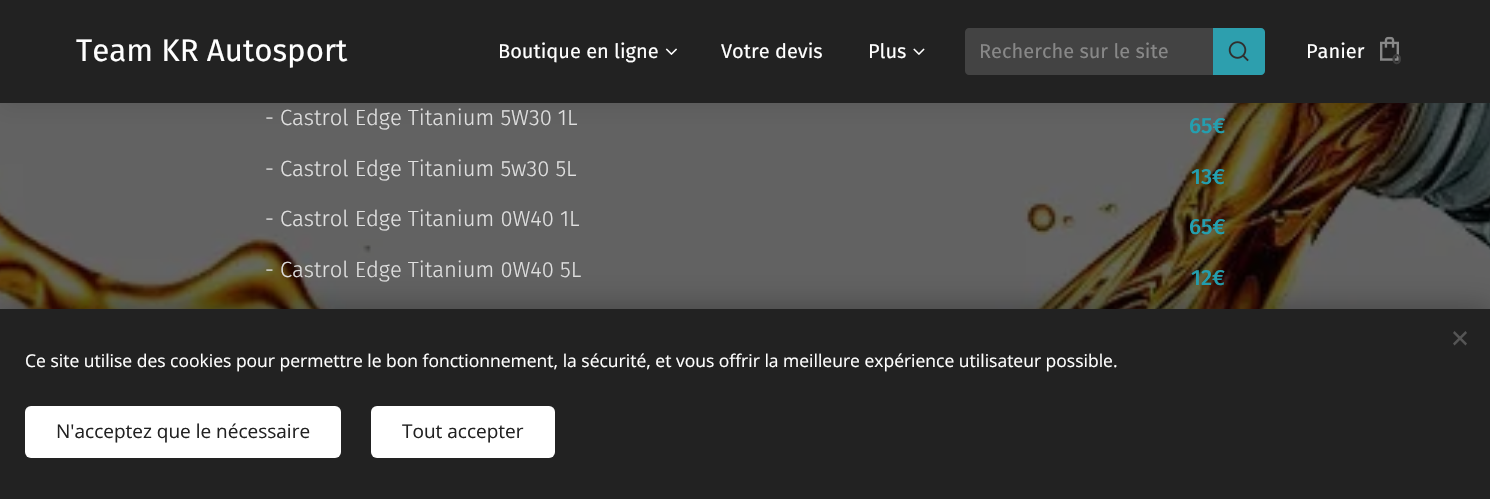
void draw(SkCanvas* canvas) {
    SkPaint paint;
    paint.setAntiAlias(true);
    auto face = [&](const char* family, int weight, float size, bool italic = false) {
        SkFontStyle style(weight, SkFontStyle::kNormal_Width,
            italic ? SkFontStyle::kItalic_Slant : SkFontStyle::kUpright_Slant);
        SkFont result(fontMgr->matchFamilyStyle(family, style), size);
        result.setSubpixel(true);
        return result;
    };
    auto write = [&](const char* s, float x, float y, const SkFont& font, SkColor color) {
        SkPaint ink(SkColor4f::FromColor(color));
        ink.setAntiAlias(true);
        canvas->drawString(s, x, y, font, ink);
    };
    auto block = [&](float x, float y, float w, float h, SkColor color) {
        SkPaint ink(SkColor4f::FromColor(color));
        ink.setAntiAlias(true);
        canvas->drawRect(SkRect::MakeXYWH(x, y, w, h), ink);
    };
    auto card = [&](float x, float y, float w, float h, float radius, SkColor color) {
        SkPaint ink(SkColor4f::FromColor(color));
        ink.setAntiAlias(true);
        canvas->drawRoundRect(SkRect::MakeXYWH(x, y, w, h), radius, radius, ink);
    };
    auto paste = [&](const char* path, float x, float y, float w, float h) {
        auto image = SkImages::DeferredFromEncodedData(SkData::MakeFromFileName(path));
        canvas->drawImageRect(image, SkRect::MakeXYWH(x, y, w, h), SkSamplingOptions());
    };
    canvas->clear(SK_ColorWHITE);
    paste("pic5.png", 0, 103, 1490, 206);
    paint.setColor(SkColorSetARGB(18, 0, 0, 0));
    paint.setMaskFilter(SkMaskFilter::MakeBlur(kNormal_SkBlurStyle, 9.5f));
    canvas->drawRect(SkRect::MakeXYWH(0, 6, 1490, 103), paint);
    paint.setMaskFilter(nullptr);
    block(0, 0, 1490, 103, SkColorSetRGB(34, 34, 34));
    auto kFont1 = face("Fira Sans", 400, 31.25f);
    write("Team KR Autosport", 76, 61, kFont1, SK_ColorWHITE);
    auto kFont2 = face("Fira Sans", 400, 20);
    write("Boutique en ligne", 498, 58, kFont2, SK_ColorWHITE);
    paste("pic1.png", 665, 48, 12, 7);
    write("Votre devis", 721, 58, kFont2, SK_ColorWHITE);
    write("Plus", 868, 58, kFont2, SK_ColorWHITE);
    paste("pic2.png", 913, 48, 12, 7);
    paint.setColor(SkColorSetRGB(67, 67, 67));
    canvas->drawPath(SkPathBuilder().moveTo(969, 28).lineTo(1213, 28).lineTo(1213, 75).lineTo(969, 75).cubicTo(967, 75, 965, 73, 965, 71).lineTo(965, 32).cubicTo(965, 30, 967, 28, 969, 28).close().detach(), paint);
    write("Recherche sur le site", 979, 58, kFont2, SkColorSetRGB(136, 136, 136));
    paint.setColor(SkColorSetRGB(45, 159, 174));
    canvas->drawPath(SkPathBuilder().moveTo(1213, 28).lineTo(1261, 28).cubicTo(1263, 28, 1265, 30, 1265, 32).lineTo(1265, 71).cubicTo(1265, 73, 1263, 75, 1261, 75).lineTo(1213, 75).close().detach(), paint);
    paste("pic3.png", 1228, 41, 21, 21);
    write("Panier", 1306, 58, kFont2, SK_ColorWHITE);
    paste("pic4.png", 1380, 36, 19, 25);
    auto kFont3 = face("Montserrat", 700, 14);
    write("0", 1392, 64, kFont3, SkColorSetRGB(63, 63, 63));
    auto kFont4 = face("Fira Sans", 300, 22);
    write("- Castrol Edge Titanium 5W30 1L", 265, 125, kFont4, SkColorSetRGB(224, 224, 224));
    write("- Castrol Edge Titanium 5w30 5L", 265, 176, kFont4, SkColorSetRGB(224, 224, 224));
    write("- Castrol Edge Titanium 0W40 1L", 265, 226, kFont4, SkColorSetRGB(224, 224, 224));
    write("- Castrol Edge Titanium 0W40 5L", 265, 277, kFont4, SkColorSetRGB(224, 224, 224));
    auto kFont5 = face("Fira Sans", 500, 22);
    write("65€", 1189, 133, kFont5, SkColorSetRGB(36, 159, 175));
    write("13€", 1191, 184, kFont5, SkColorSetRGB(36, 159, 175));
    write("65€", 1189, 234, kFont5, SkColorSetRGB(36, 159, 175));
    write("12€", 1191, 285, kFont5, SkColorSetRGB(36, 159, 175));
    paint.setColor(SkColorSetARGB(84, 0, 0, 0));
    paint.setMaskFilter(SkMaskFilter::MakeBlur(kNormal_SkBlurStyle, 15.5f));
    canvas->drawRect(SkRect::MakeXYWH(0, 309, 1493, 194), paint);
    paint.setMaskFilter(nullptr);
    block(0, 309, 1490, 190, SkColorSetRGB(34, 34, 34));
    paint.setColor(SkColorSetRGB(85, 85, 85));
    canvas->drawPath(SkPathBuilder().moveTo(1453, 343.5f).lineTo(1465.5f, 331).lineTo(1467, 333).lineTo(1454.5f, 345.5f).close().detach(), paint);
    canvas->drawPath(SkPathBuilder().moveTo(1454.5f, 331).lineTo(1467, 343.5f).lineTo(1465.5f, 345.5f).lineTo(1453, 333).close().detach(), paint);
    auto kFont6 = face("Open Sans", 400, 17.5f);
    write("Ce site utilise des cookies pour permettre le bon fonctionnement, la sécurité, et vous offrir la meilleure expérience utilisateur possible.", 25, 367, kFont6, SK_ColorWHITE);
    card(25, 406, 316, 52, 6, SK_ColorWHITE);
    auto kFont7 = face("Open Sans", 400, 19);
    write("N'acceptez que le nécessaire", 56, 438, kFont7, SkColorSetRGB(34, 34, 34));
    card(371, 406, 184, 52, 6, SK_ColorWHITE);
    write("Tout accepter", 402, 438, kFont7, SkColorSetRGB(34, 34, 34));
}
